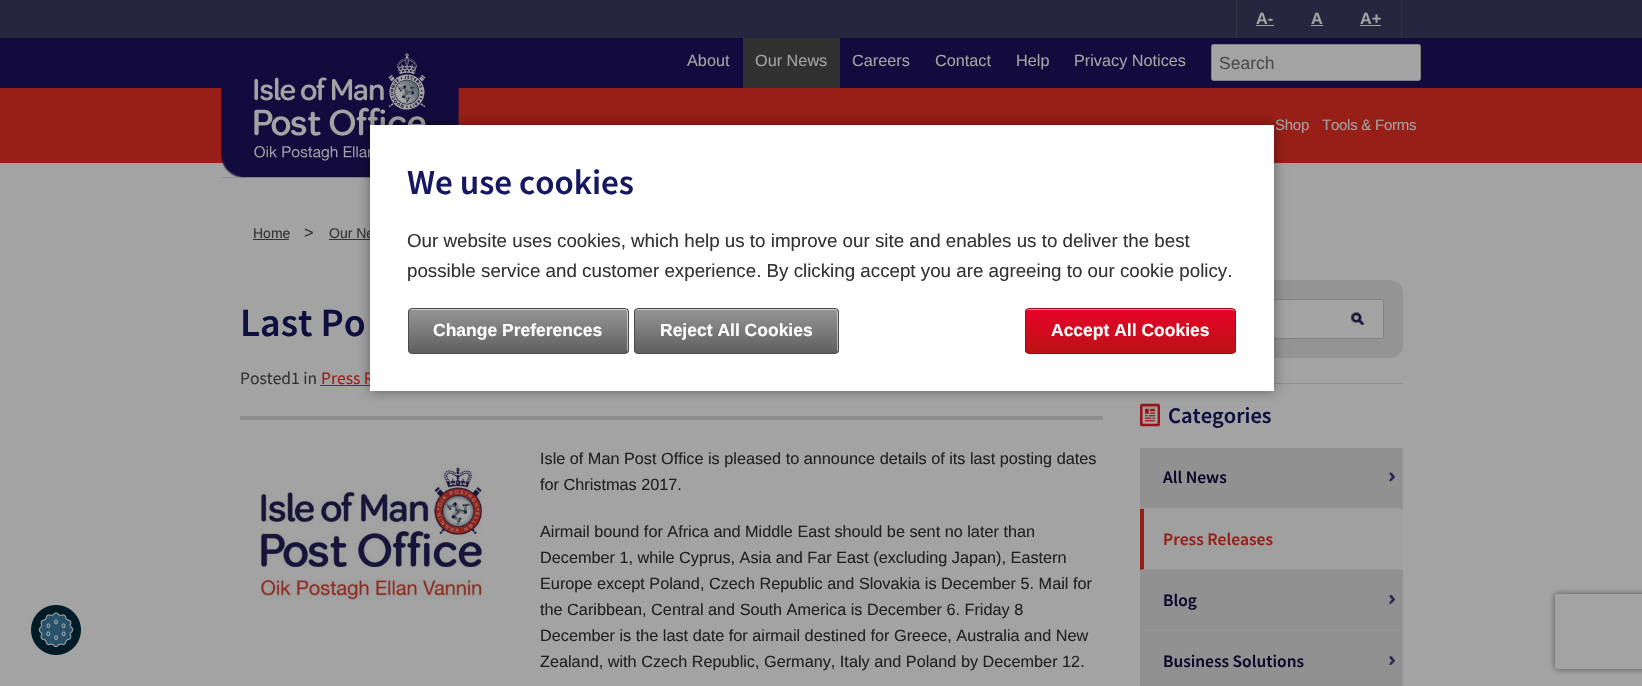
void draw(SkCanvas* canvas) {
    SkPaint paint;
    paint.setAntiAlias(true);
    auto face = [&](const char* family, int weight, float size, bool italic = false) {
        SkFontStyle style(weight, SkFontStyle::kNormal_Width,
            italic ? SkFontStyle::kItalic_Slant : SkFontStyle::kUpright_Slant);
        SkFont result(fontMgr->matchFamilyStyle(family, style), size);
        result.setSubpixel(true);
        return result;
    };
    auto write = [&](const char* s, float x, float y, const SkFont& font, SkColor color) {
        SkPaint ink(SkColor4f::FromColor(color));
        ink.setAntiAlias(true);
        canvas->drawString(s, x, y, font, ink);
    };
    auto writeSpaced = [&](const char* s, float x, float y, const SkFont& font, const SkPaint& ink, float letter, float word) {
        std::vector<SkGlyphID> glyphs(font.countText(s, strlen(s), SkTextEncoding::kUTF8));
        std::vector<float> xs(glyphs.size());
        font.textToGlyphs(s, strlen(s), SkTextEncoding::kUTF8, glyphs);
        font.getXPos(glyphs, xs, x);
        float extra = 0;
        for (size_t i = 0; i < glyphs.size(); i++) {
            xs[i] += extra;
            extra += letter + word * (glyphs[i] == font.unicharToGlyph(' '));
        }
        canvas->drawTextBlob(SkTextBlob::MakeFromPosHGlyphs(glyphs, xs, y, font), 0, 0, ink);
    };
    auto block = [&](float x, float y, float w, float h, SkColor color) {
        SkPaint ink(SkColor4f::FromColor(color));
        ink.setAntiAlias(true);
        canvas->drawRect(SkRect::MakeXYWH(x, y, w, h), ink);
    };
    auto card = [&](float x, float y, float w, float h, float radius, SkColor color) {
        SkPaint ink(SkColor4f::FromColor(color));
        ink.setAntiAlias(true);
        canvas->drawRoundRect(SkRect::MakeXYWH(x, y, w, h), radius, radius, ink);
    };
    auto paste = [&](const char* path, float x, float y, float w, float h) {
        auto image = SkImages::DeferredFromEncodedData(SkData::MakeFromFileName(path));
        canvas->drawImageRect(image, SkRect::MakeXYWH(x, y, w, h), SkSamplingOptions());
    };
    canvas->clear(SkColorSetRGB(163, 163, 163));
    block(0, 0, 1642, 38, SkColorSetRGB(38, 39, 62));
    paint.setColor(SkColorSetRGB(51, 51, 72));
    canvas->drawPath(SkPathBuilder().moveTo(1236, 37.5f).lineTo(1236, 38).lineTo(1237, 38).lineTo(1237, 0).lineTo(1236, 0).close().detach(), paint);
    auto kFont1 = face("Liberation Sans", 700, 16.25f);
    write("A-", 1256, 24, kFont1, SkColorSetRGB(163, 163, 163));
    block(1256, 25, 18, 1, SkColorSetRGB(163, 163, 163));
    write("A", 1311, 24, kFont1, SkColorSetRGB(163, 163, 163));
    block(1311, 25, 12, 1, SkColorSetRGB(163, 163, 163));
    write("A+", 1360, 24, kFont1, SkColorSetRGB(163, 163, 163));
    block(1360, 25, 21, 1, SkColorSetRGB(163, 163, 163));
    canvas->drawPath(SkPathBuilder().moveTo(1401, 37.5f).lineTo(1401, 38).lineTo(1402, 38).lineTo(1402, 0).lineTo(1401, 0).close().detach(), paint);
    block(0, 38, 1642, 50, SkColorSetRGB(19, 10, 61));
    block(0, 88, 1642, 75, SkColorSetRGB(152, 31, 23));
    paste("pic1.png", 221, 53, 238, 125);
    auto kFont2 = face("Liberation Sans", 400, 16.25f);
    write("About", 687, 66, kFont2, SkColorSetRGB(163, 163, 163));
    block(743, 38, 97, 50, SkColorSetRGB(49, 49, 49));
    write("Our News", 755, 66, kFont2, SkColorSetRGB(163, 163, 163));
    write("Careers", 852, 66, kFont2, SkColorSetRGB(163, 163, 163));
    write("Contact", 935, 66, kFont2, SkColorSetRGB(163, 163, 163));
    write("Help", 1016, 66, kFont2, SkColorSetRGB(163, 163, 163));
    write("Privacy Notices", 1074, 66, kFont2, SkColorSetRGB(163, 163, 163));
    paint.setColor(SkColorSetRGB(163, 163, 163));
    canvas->drawRoundRect(SkRect::MakeXYWH(1211.5f, 44.5f, 209, 36), 2, 2, paint);
    paint.setStyle(SkPaint::kStroke_Style);
    paint.setStrokeWidth(1);
    paint.setColor(SkColorSetRGB(131, 131, 131));
    canvas->drawRoundRect(SkRect::MakeXYWH(1211.5f, 44.5f, 209, 36), 2, 2, paint);
    auto kFont3 = face("Liberation Sans", 400, 17.5f);
    write("Search", 1219, 69, kFont3, SkColorSetRGB(75, 75, 75));
    auto kFont4 = face("Liberation Sans", 400, 15);
    paint.setStyle(SkPaint::kFill_Style);
    paint.setColor(SkColorSetRGB(163, 163, 163));
    writeSpaced("Shop", 1275, 130, kFont4, paint, -0.25f, 0);
    writeSpaced("Tools & Forms", 1322, 130, kFont4, paint, -0.25f, 0);
    auto kFont5 = face("Liberation Sans", 400, 14);
    write("Home", 253, 238, kFont5, SkColorSetRGB(51, 51, 51));
    block(253, 239, 36, 1, SkColorSetRGB(51, 51, 51));
    write(">", 304, 238, kFont2, SkColorSetRGB(51, 51, 51));
    write("Our Ne", 329, 238, kFont5, SkColorSetRGB(51, 51, 51));
    block(329, 239, 41, 1, SkColorSetRGB(51, 51, 51));
    block(320, 385, 50, 1, SkColorSetRGB(152, 31, 23));
    block(1274, 383, 129, 1, SkColorSetRGB(145, 145, 145));
    card(1140, 280, 263, 78, 13, SkColorSetRGB(148, 148, 148));
    canvas->drawRoundRect(SkRect::MakeXYWH(1159.5f, 299.5f, 224, 39), 2, 2, paint);
    paint.setStyle(SkPaint::kStroke_Style);
    paint.setColor(SkColorSetRGB(131, 131, 131));
    canvas->drawRoundRect(SkRect::MakeXYWH(1159.5f, 299.5f, 224, 39), 2, 2, paint);
    paste("pic5.png", 1140, 403, 20, 24);
    paint.setStyle(SkPaint::kFill_Style);
    paint.setColor(SkColorSetARGB(102, 0, 0, 0));
    paint.setMaskFilter(SkMaskFilter::MakeBlur(kNormal_SkBlurStyle, 6));
    canvas->drawRect(SkRect::MakeXYWH(370, 125, 904, 266), paint);
    paint.setMaskFilter(nullptr);
    auto kFont6 = face("Source Sans Pro", 400, 17.5f);
    write("Press R", 321, 384, kFont6, SkColorSetRGB(152, 31, 23));
    block(370, 125, 904, 266, SK_ColorWHITE);
    auto kFont7 = face("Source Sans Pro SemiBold", 600, 35);
    write("We use cookies", 407, 194, kFont7, SkColorSetRGB(22, 24, 97));
    auto kFont8 = face("Liberation Sans", 400, 18.75f);
    write("Our website uses cookies, which help us to improve our site and enables us to deliver the best", 407, 247, kFont8, SkColorSetRGB(51, 51, 51));
    write("possible service and customer experience. By clicking accept you are agreeing to our cookie policy.", 407, 277, kFont8, SkColorSetRGB(51, 51, 51));
    canvas->save();
    canvas->clipPath(SkPathBuilder().moveTo(412, 308).lineTo(625, 308).cubicTo(627, 308, 629, 310, 629, 312).lineTo(629, 350).cubicTo(629, 352, 627, 354, 625, 354).lineTo(412, 354).cubicTo(410, 354, 408, 352, 408, 350).lineTo(408, 312).cubicTo(408, 310, 410, 308, 412, 308).close().detach(), true);
    {
        const SkColor colors[] = {SkColorSetRGB(150, 150, 150), SkColorSetRGB(95, 95, 95)};
        const float stops[] = {0, 1};
        const SkPoint ends[] = {{518, 309}, {518, 353}};
        paint.setShader(SkGradientShader::MakeLinear(ends, colors, stops, 2, SkTileMode::kClamp));
        paint.setAlpha(255);
    }
    canvas->drawRect(SkRect::MakeXYWH(408, 309, 221, 44), paint);
    canvas->restore();
    paint.setShader(nullptr);
    paint.setColor(SkColorSetARGB(128, 255, 255, 255));
    canvas->drawPath(SkPathBuilder().moveTo(411, 310).lineTo(625, 310).cubicTo(626, 310, 627, 311, 627, 312).lineTo(627, 353).cubicTo(627, 352, 628, 351, 628, 350).lineTo(628, 312).cubicTo(628, 310, 627, 309, 626, 309).lineTo(412, 309).cubicTo(411, 309, 410, 310, 409, 310).close().detach(), paint);
    paint.setStyle(SkPaint::kStroke_Style);
    paint.setColor(SkColorSetRGB(74, 74, 74));
    canvas->drawRoundRect(SkRect::MakeXYWH(408.5f, 308.5f, 220, 45), 3.5f, 3.5f, paint);
    auto kFont9 = face("Liberation Sans", 700, 17.5f);
    write("Change Preferences", 433, 336, kFont9, SK_ColorWHITE);
    canvas->save();
    canvas->clipPath(SkPathBuilder().moveTo(638, 308).lineTo(835, 308).cubicTo(837, 308, 839, 310, 839, 312).lineTo(839, 350).cubicTo(839, 352, 837, 354, 835, 354).lineTo(638, 354).cubicTo(636, 354, 634, 352, 634, 350).lineTo(634, 312).cubicTo(634, 310, 636, 308, 638, 308).close().detach(), true);
    paint.setStyle(SkPaint::kFill_Style);
    {
        const SkColor colors[] = {SkColorSetRGB(150, 150, 150), SkColorSetRGB(95, 95, 95)};
        const float stops[] = {0, 1};
        const SkPoint ends[] = {{736, 309}, {736, 353}};
        paint.setShader(SkGradientShader::MakeLinear(ends, colors, stops, 2, SkTileMode::kClamp));
        paint.setAlpha(255);
    }
    canvas->drawRect(SkRect::MakeXYWH(634, 309, 205, 44), paint);
    canvas->restore();
    paint.setShader(nullptr);
    paint.setColor(SkColorSetARGB(128, 255, 255, 255));
    canvas->drawPath(SkPathBuilder().moveTo(637, 310).lineTo(835, 310).cubicTo(836, 310, 837, 311, 837, 312).lineTo(837, 353).cubicTo(837, 352, 838, 351, 838, 350).lineTo(838, 312).cubicTo(838, 310, 837, 309, 836, 309).lineTo(638, 309).cubicTo(636, 309, 635, 310, 635, 312).cubicTo(635, 311, 636, 310, 637, 310).close().detach(), paint);
    paint.setStyle(SkPaint::kStroke_Style);
    paint.setColor(SkColorSetRGB(74, 74, 74));
    canvas->drawRoundRect(SkRect::MakeXYWH(634.5f, 308.5f, 204, 45), 3.5f, 3.5f, paint);
    write("Reject All Cookies", 660, 336, kFont9, SK_ColorWHITE);
    canvas->save();
    canvas->clipPath(SkPathBuilder().moveTo(1029, 308).lineTo(1232, 308).cubicTo(1234, 308, 1236, 310, 1236, 312).lineTo(1236, 350).cubicTo(1236, 352, 1234, 354, 1232, 354).lineTo(1029, 354).cubicTo(1027, 354, 1025, 352, 1025, 350).lineTo(1025, 312).cubicTo(1025, 310, 1027, 308, 1029, 308).close().detach(), true);
    paint.setStyle(SkPaint::kFill_Style);
    {
        const SkColor colors[] = {SkColorSetRGB(232, 3, 42), SkColorSetRGB(187, 18, 19)};
        const float stops[] = {0, 1};
        const SkPoint ends[] = {{1130, 309}, {1130, 353}};
        paint.setShader(SkGradientShader::MakeLinear(ends, colors, stops, 2, SkTileMode::kClamp));
        paint.setAlpha(255);
    }
    canvas->drawRect(SkRect::MakeXYWH(1025, 309, 211, 44), paint);
    canvas->restore();
    paint.setShader(nullptr);
    paint.setColor(SkColorSetRGB(243, 129, 148));
    canvas->drawPath(SkPathBuilder().moveTo(1028, 310).lineTo(1232, 310).cubicTo(1233, 310, 1235, 311, 1235, 312).cubicTo(1235, 310, 1234, 309, 1232, 309).lineTo(1028, 309).cubicTo(1027, 309, 1026, 310, 1026, 312).cubicTo(1026, 311, 1027, 310, 1028, 310).close().detach(), paint);
    paint.setStyle(SkPaint::kStroke_Style);
    paint.setColor(SkColorSetRGB(151, 15, 18));
    canvas->drawRoundRect(SkRect::MakeXYWH(1025.5f, 308.5f, 210, 45), 3.5f, 3.5f, paint);
    write("Accept All Cookies", 1051, 336, kFont9, SK_ColorWHITE);
    paste("pic2.png", 31, 605, 50, 50);
    auto kFont10 = face("Source Sans Pro SemiBold", 600, 40);
    write("Last Po", 240, 336, kFont10, SkColorSetRGB(14, 15, 62));
    write("Posted1 in", 240, 384, kFont6, SkColorSetRGB(51, 51, 51));
    block(240, 416, 863, 4, SkColorSetRGB(141, 141, 141));
    paste("pic3.png", 260, 464, 226, 137);
    write("Isle of Man Post Office is pleased to announce details of its last posting dates", 540, 464, kFont2, SkColorSetRGB(33, 33, 33));
    write("for Christmas 2017.", 540, 490, kFont2, SkColorSetRGB(33, 33, 33));
    write("Airmail bound for Africa and Middle East should be sent no later than", 540, 537, kFont2, SkColorSetRGB(33, 33, 33));
    write("December 1, while Cyprus, Asia and Far East (excluding Japan), Eastern", 540, 563, kFont2, SkColorSetRGB(33, 33, 33));
    write("Europe except Poland, Czech Republic and Slovakia is December 5. Mail for", 540, 589, kFont2, SkColorSetRGB(33, 33, 33));
    write("the Caribbean, Central and South America is December 6. Friday 8", 540, 615, kFont2, SkColorSetRGB(33, 33, 33));
    write("December is the last date for airmail destined for Greece, Australia and New", 540, 641, kFont2, SkColorSetRGB(33, 33, 33));
    write("Zealand, with Czech Republic, Germany, Italy and Poland by December 12.", 540, 667, kFont2, SkColorSetRGB(33, 33, 33));
    paste("pic4.png", 1351, 312, 13, 13);
    auto kFont11 = face("Source Sans Pro SemiBold", 600, 22.5f);
    write("Categories", 1168, 423, kFont11, SkColorSetRGB(14, 15, 62));
    block(1140, 448, 263, 61, SkColorSetRGB(145, 145, 145));
    paint.setStyle(SkPaint::kFill_Style);
    paint.setColor(SkColorSetRGB(152, 152, 152));
    canvas->drawPath(SkPathBuilder().moveTo(1402, 509).lineTo(1140, 509).lineTo(1144, 508).lineTo(1402, 508).close().detach(), paint);
    paste("pic6.png", 1388, 472, 7, 10);
    auto kFont12 = face("Source Sans Pro SemiBold", 600, 17.5f);
    write("All News", 1163, 483, kFont12, SkColorSetRGB(14, 8, 42));
    block(1140, 509, 263, 61, SkColorSetRGB(159, 159, 159));
    canvas->drawPath(SkPathBuilder().moveTo(1402, 570).lineTo(1140, 570).lineTo(1144, 569).lineTo(1402, 569).close().detach(), paint);
    paint.setColor(SkColorSetRGB(152, 31, 23));
    canvas->drawPath(SkPathBuilder().moveTo(1140, 570).lineTo(1140, 509).lineTo(1144, 509).lineTo(1144, 569).close().detach(), paint);
    write("Press Releases", 1163, 545, kFont12, SkColorSetRGB(152, 31, 23));
    block(1140, 570, 263, 116, SkColorSetRGB(145, 145, 145));
    paint.setColor(SkColorSetRGB(152, 152, 152));
    canvas->drawPath(SkPathBuilder().moveTo(1402, 631).lineTo(1140, 631).lineTo(1144, 630).lineTo(1402, 630).close().detach(), paint);
    paste("pic7.png", 1388, 595, 7, 9);
    write("Blog", 1163, 606, kFont12, SkColorSetRGB(14, 8, 42));
    paste("pic8.png", 1388, 656, 7, 9);
    write("Business Solutions", 1163, 667, kFont12, SkColorSetRGB(14, 8, 42));
    canvas->save();
    canvas->clipPath(SkPathBuilder(SkPathFillType::kEvenOdd).moveTo(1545, 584).lineTo(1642, 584).lineTo(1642, 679).lineTo(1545, 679).close().moveTo(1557.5f, 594).lineTo(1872.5f, 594).cubicTo(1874, 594, 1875, 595, 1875, 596.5f).lineTo(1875, 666.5f).cubicTo(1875, 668, 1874, 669, 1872.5f, 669).lineTo(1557.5f, 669).cubicTo(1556, 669, 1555, 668, 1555, 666.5f).lineTo(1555, 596.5f).cubicTo(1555, 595, 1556, 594, 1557.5f, 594).close().detach(), true);
    paint.setColor(SkColorSetRGB(82, 82, 82));
    paint.setMaskFilter(SkMaskFilter::MakeBlur(kNormal_SkBlurStyle, 3));
    canvas->drawRoundRect(SkRect::MakeXYWH(1555, 594, 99, 75), 2.5f, 2.5f, paint);
    paint.setMaskFilter(nullptr);
    canvas->restore();
}
